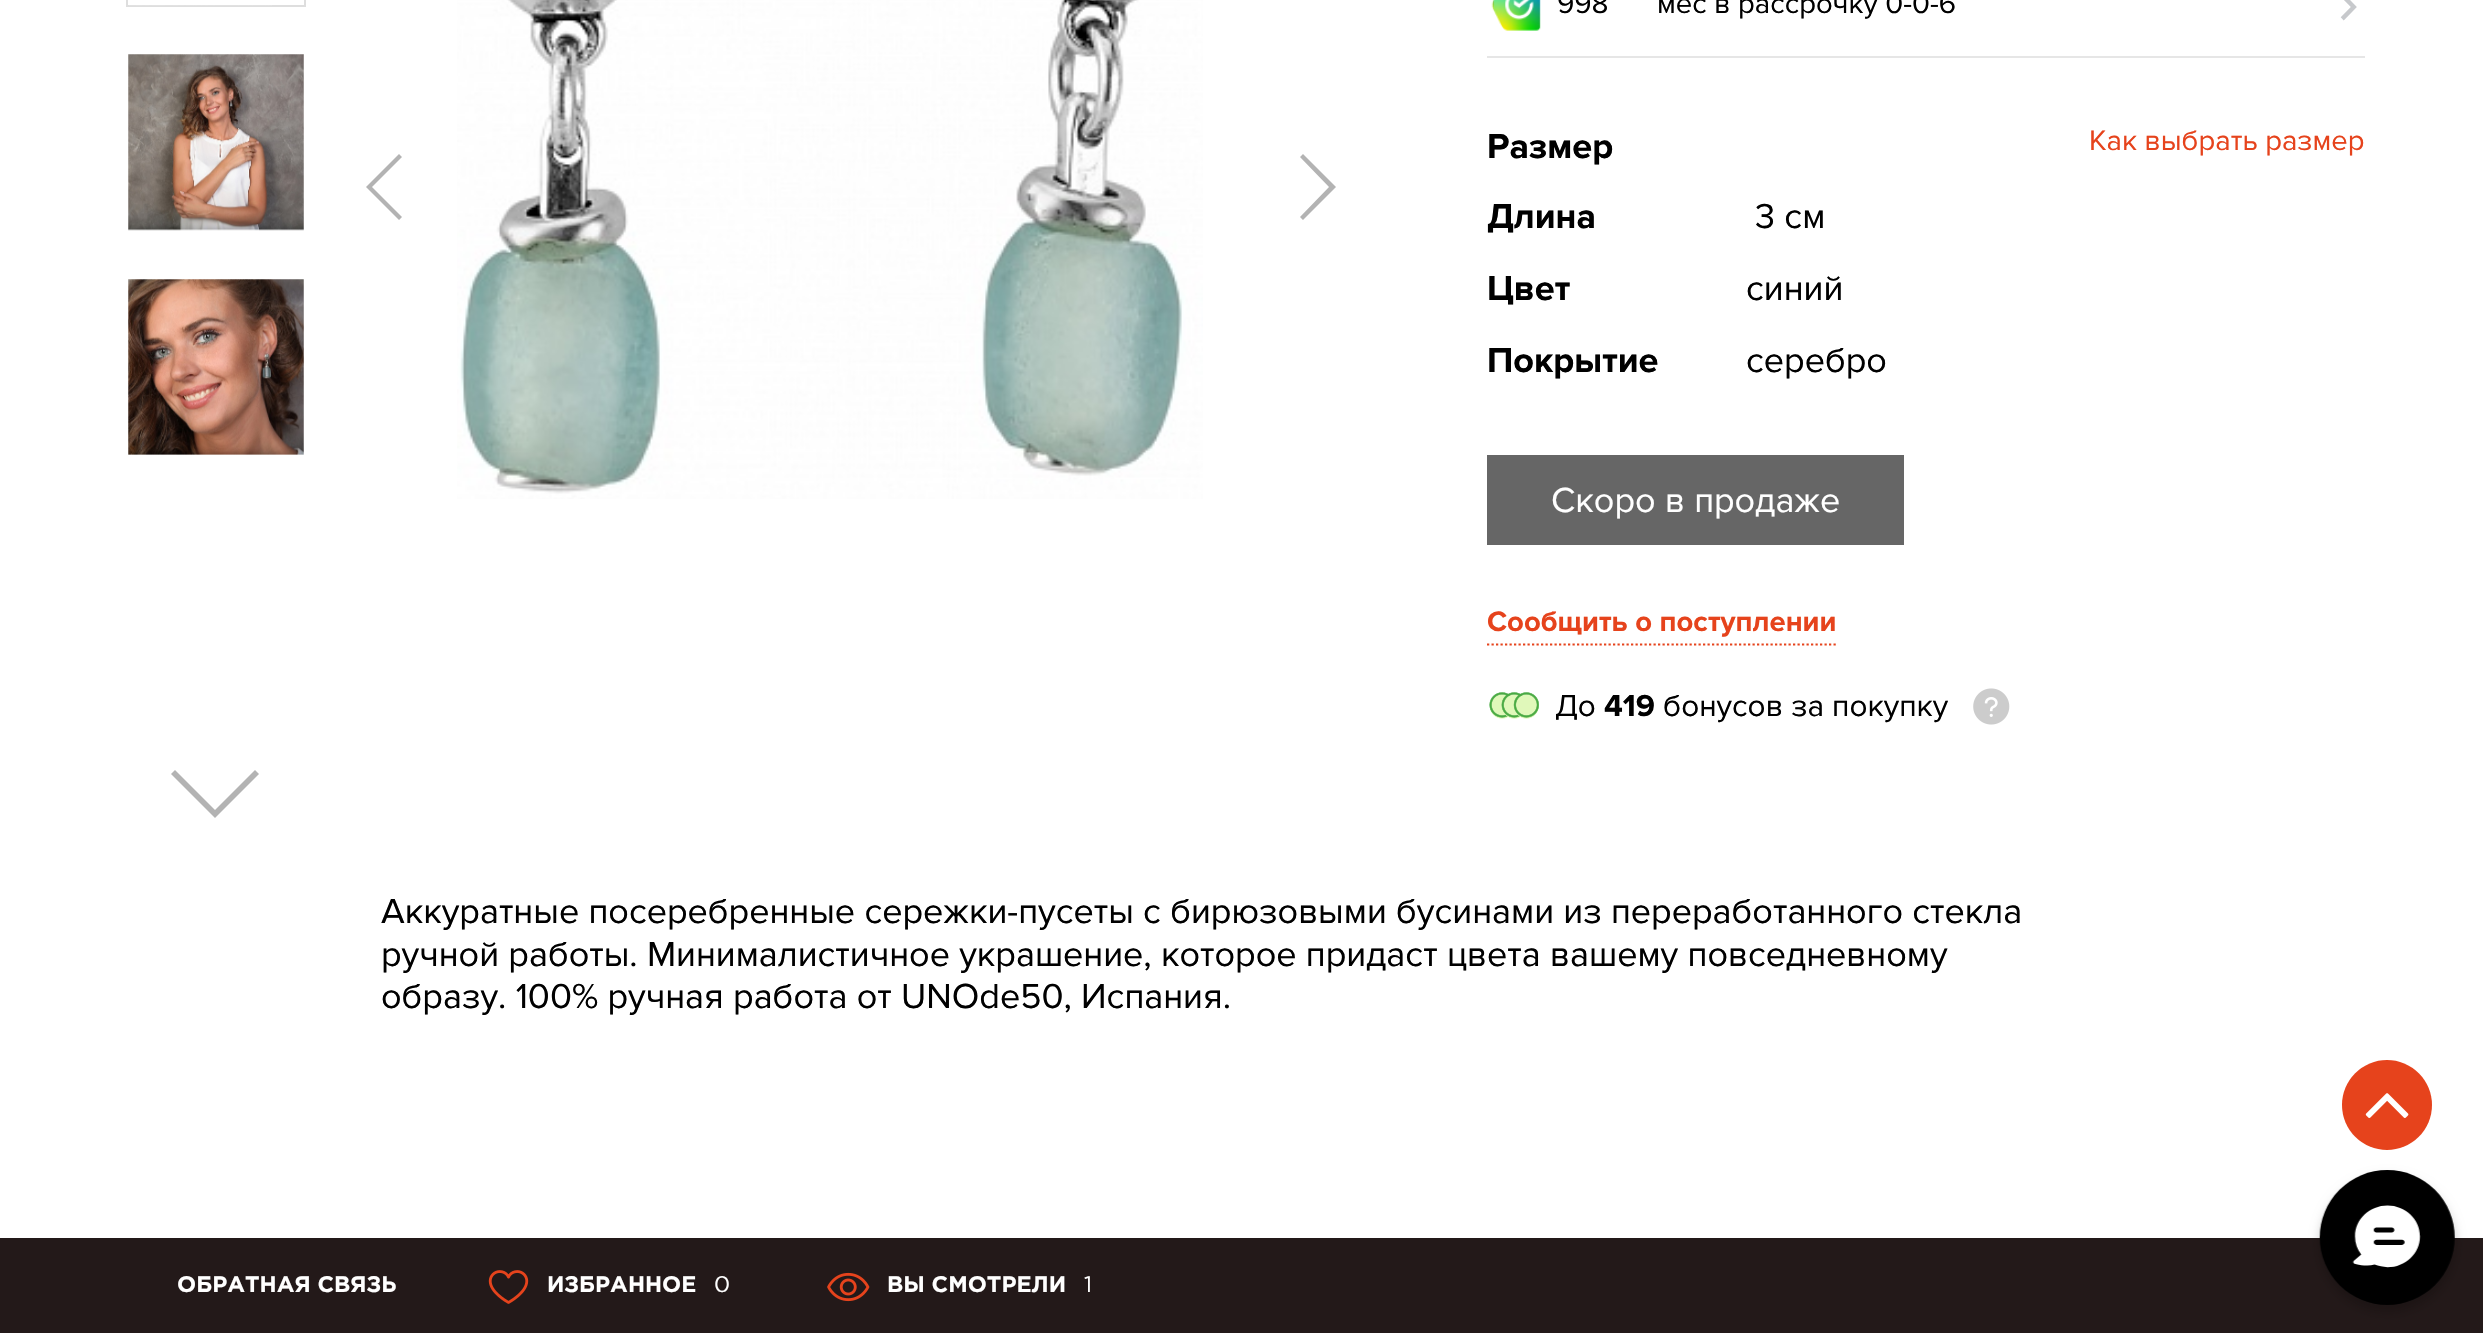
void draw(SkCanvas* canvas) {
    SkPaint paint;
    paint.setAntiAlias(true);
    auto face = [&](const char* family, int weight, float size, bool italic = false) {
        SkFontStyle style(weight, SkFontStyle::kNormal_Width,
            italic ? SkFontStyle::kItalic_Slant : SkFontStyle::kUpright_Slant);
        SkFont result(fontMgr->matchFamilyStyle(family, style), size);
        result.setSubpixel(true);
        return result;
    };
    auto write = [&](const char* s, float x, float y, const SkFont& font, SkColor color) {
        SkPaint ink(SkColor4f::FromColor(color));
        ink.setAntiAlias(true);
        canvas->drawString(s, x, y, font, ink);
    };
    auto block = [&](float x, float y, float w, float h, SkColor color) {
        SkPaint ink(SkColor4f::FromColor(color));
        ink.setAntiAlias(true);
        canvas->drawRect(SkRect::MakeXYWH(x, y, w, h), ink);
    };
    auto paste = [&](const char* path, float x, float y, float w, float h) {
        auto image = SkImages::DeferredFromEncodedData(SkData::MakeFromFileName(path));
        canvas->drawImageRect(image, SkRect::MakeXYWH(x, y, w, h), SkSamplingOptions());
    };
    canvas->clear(SK_ColorWHITE);
    paint.setStyle(SkPaint::kStroke_Style);
    paint.setStrokeWidth(2);
    paint.setColor(SkColorSetRGB(222, 222, 222));
    canvas->drawRect(SkRect::MakeXYWH(127, -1, 178, 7), paint);
    paste("pic1.png", 129, 5, 143, 1);
    paste("pic2.png", 128, 54, 176, 177);
    paste("pic3.png", 128, 279, 176, 176);
    paint.setStyle(SkPaint::kFill_Style);
    paint.setColor(SkColorSetRGB(179, 179, 179));
    canvas->drawPath(SkPathBuilder().moveTo(259, 774).lineTo(215, 818).lineTo(171, 774).lineTo(175, 770).lineTo(215, 810).lineTo(255, 770).close().detach(), paint);
    canvas->drawPath(SkPathBuilder().moveTo(399, 220).lineTo(366, 187).lineTo(399, 154).lineTo(402, 157).lineTo(372, 187).lineTo(402, 217).close().detach(), paint);
    paste("pic4.png", 457, 0, 746, 499);
    canvas->drawPath(SkPathBuilder().moveTo(1303, 220).lineTo(1336, 187).lineTo(1303, 154).lineTo(1300, 157).lineTo(1329, 187).lineTo(1300, 217).close().detach(), paint);
    block(1487, 56, 878, 2, SkColorSetRGB(230, 230, 230));
    paste("pic5.png", 1491, 0, 50, 31);
    auto kFont1 = face("Proxima Nova", 400, 29.25f);
    write("998", 1557, 13, kFont1, SK_ColorBLACK);
    write("мес в рассрочку 0-0-6", 1657, 13, kFont1, SK_ColorBLACK);
    paste("pic6.png", 2340, 0, 17, 21);
    auto kFont2 = face("Proxima Nova", 700, 36);
    write("Размер", 1487, 158, kFont2, SK_ColorBLACK);
    write("Как выбрать размер", 2089, 150, kFont1, SkColorSetRGB(230, 67, 28));
    write("Длина", 1487, 228, kFont2, SK_ColorBLACK);
    auto kFont3 = face("Proxima Nova", 400, 36);
    write("3 см", 1755, 228, kFont3, SK_ColorBLACK);
    write("Цвет", 1487, 300, kFont2, SK_ColorBLACK);
    write("синий", 1746, 300, kFont3, SK_ColorBLACK);
    write("Покрытие", 1487, 372, kFont2, SK_ColorBLACK);
    write("серебро", 1746, 372, kFont3, SK_ColorBLACK);
    block(1487, 455, 417, 90, SkColorSetRGB(102, 102, 102));
    write("Скоро в продаже", 1551, 512, kFont3, SK_ColorWHITE);
    paint.setStyle(SkPaint::kStroke_Style);
    paint.setStrokeWidth(2.2f);
    paint.setColor(SkColorSetRGB(230, 67, 28));
    paint.setPathEffect(SkDashPathEffect::Make({{2.25f, 2.25f}}, 0));
    canvas->drawPath(SkPathBuilder().moveTo(1487, 644.5f).lineTo(1836, 644.5f).detach(), paint);
    paint.setPathEffect(nullptr);
    auto kFont4 = face("Proxima Nova", 700, 29.25f);
    write("Сообщить о поступлении", 1487, 631, kFont4, SkColorSetRGB(230, 67, 28));
    paste("pic7.png", 1489, 692, 50, 27);
    auto kFont5 = face("Proxima Nova", 400, 31.5f);
    write("До", 1555, 716, kFont5, SK_ColorBLACK);
    auto kFont6 = face("Proxima Nova", 700, 31.5f);
    write("419", 1604, 716, kFont6, SK_ColorBLACK);
    write("бонусов за покупку", 1663, 716, kFont5, SK_ColorBLACK);
    paste("pic8.png", 1973, 688, 37, 37);
    write("Аккуратные посеребренные сережки-пусеты с бирюзовыми бусинами из переработанного стекла", 381, 923, kFont3, SK_ColorBLACK);
    write("ручной работы. Минималистичное украшение, которое придаст цвета вашему повседневному", 381, 966, kFont3, SK_ColorBLACK);
    write("образу. 100% ручная работа от UNOde50, Испания.", 381, 1008, kFont3, SK_ColorBLACK);
    paint.setStyle(SkPaint::kFill_Style);
    canvas->drawCircle(2387, 1105, 45, paint);
    paste("pic9.png", 2365, 1093, 44, 25);
    block(0, 1238, 2483, 95, SkColorSetRGB(35, 25, 25));
    auto kFont7 = face("Gotham", 700, 22.5f);
    write("ОБРАТНАЯ СВЯЗЬ", 177, 1292, kFont7, SK_ColorWHITE);
    paste("pic10.png", 488, 1270, 41, 34);
    write("ИЗБРАННОЕ", 547, 1292, kFont7, SK_ColorWHITE);
    auto kFont8 = face("Gotham", 400, 22.5f);
    write("0", 714, 1292, kFont8, SK_ColorWHITE);
    paste("pic11.png", 827, 1272, 43, 30);
    write("ВЫ СМОТРЕЛИ", 887, 1292, kFont7, SK_ColorWHITE);
    write("1", 1084, 1292, kFont8, SK_ColorWHITE);
    paint.setColor(SkColorSetARGB(51, 0, 0, 0));
    paint.setMaskFilter(SkMaskFilter::MakeBlur(kNormal_SkBlurStyle, 5.5f));
    canvas->drawRoundRect(SkRect::MakeXYWH(2320, 1177, 135, 135), 67.5f, 67.5f, paint);
    paint.setMaskFilter(nullptr);
    paste("pic12.png", 2319, 1170, 136, 135);
}
